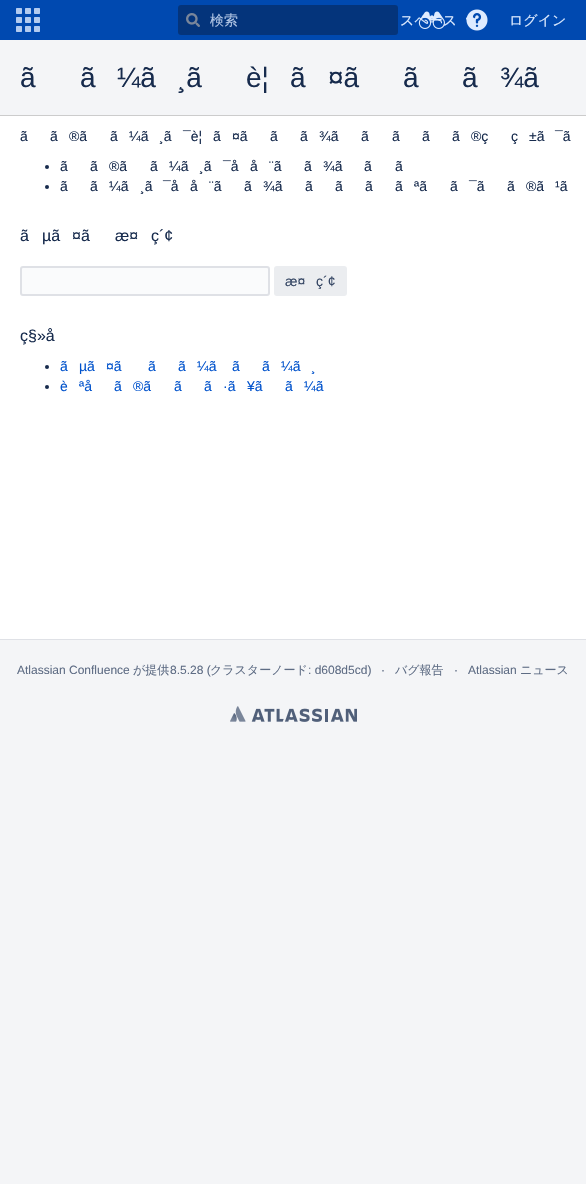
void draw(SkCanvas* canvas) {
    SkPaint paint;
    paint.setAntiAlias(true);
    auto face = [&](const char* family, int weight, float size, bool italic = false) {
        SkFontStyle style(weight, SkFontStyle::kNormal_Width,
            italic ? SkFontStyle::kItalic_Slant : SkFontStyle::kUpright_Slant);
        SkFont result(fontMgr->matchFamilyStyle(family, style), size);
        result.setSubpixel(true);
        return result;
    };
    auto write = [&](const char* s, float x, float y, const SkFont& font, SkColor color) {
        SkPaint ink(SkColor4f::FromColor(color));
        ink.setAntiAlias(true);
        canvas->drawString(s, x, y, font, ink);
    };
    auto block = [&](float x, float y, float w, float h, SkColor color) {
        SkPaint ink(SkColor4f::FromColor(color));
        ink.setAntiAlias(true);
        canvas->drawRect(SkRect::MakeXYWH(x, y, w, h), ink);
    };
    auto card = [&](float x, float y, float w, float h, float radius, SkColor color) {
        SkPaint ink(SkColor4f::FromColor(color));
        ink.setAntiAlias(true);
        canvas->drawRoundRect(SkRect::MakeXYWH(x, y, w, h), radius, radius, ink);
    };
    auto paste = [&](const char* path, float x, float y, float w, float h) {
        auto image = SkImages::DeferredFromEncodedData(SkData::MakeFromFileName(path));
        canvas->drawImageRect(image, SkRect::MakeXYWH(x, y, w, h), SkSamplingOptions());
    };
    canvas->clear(SkColorSetRGB(244, 245, 247));
    block(0, 0, 586, 40, SkColorSetRGB(0, 73, 176));
    paste("pic1.png", 16, 8, 24, 24);
    card(178, 5, 220, 30, 3, SkColorSetRGB(4, 52, 123));
    paste("pic2.png", 186, 13, 14, 14);
    auto kFont1 = face("WenQuanYi Zen Hei", 500, 14);
    write("検索", 210, 25, kFont1, SkColorSetRGB(178, 198, 229));
    write("スペース", 400, 25, kFont1, SkColorSetRGB(222, 235, 255));
    paste("pic3.png", 418, 11, 27, 18);
    paste("pic5.png", 466, 17, 8, 3);
    paste("pic4.png", 466, 9, 22, 22);
    write("ログイン", 509, 25, kFont1, SkColorSetRGB(222, 235, 255));
    block(0, 116, 586, 523, SK_ColorWHITE);
    block(0, 639, 586, 1, SkColorSetRGB(223, 225, 230));
    block(0, 115, 586, 1, SkColorSetRGB(204, 204, 204));
    auto kFont2 = face("Liberation Sans", 400, 28);
    write("ã", 20, 87, kFont2, SkColorSetRGB(23, 43, 77));
    write("ã", 80, 87, kFont2, SkColorSetRGB(23, 43, 77));
    write("¼ã", 117, 87, kFont2, SkColorSetRGB(23, 43, 77));
    write("¸ã", 177, 87, kFont2, SkColorSetRGB(23, 43, 77));
    write("è¦", 246, 87, kFont2, SkColorSetRGB(23, 43, 77));
    write("ã", 290, 87, kFont2, SkColorSetRGB(23, 43, 77));
    write("¤ã", 328, 87, kFont2, SkColorSetRGB(23, 43, 77));
    write("ã", 403, 87, kFont2, SkColorSetRGB(23, 43, 77));
    write("ã", 462, 87, kFont2, SkColorSetRGB(23, 43, 77));
    write("¾ã", 500, 87, kFont2, SkColorSetRGB(23, 43, 77));
    auto kFont3 = face("Liberation Sans", 400, 14);
    write("ã", 20, 141, kFont3, SkColorSetRGB(23, 43, 77));
    write("ã", 50, 141, kFont3, SkColorSetRGB(23, 43, 77));
    write("®ã", 69, 141, kFont3, SkColorSetRGB(23, 43, 77));
    write("ã", 110, 141, kFont3, SkColorSetRGB(23, 43, 77));
    write("¼ã", 129, 141, kFont3, SkColorSetRGB(23, 43, 77));
    write("¸ã", 159, 141, kFont3, SkColorSetRGB(23, 43, 77));
    write("¯è¦", 183, 141, kFont3, SkColorSetRGB(23, 43, 77));
    write("ã", 213, 141, kFont3, SkColorSetRGB(23, 43, 77));
    write("¤ã", 232, 141, kFont3, SkColorSetRGB(23, 43, 77));
    write("ã", 270, 141, kFont3, SkColorSetRGB(23, 43, 77));
    write("ã", 300, 141, kFont3, SkColorSetRGB(23, 43, 77));
    write("¾ã", 319, 141, kFont3, SkColorSetRGB(23, 43, 77));
    write("ã", 361, 141, kFont3, SkColorSetRGB(23, 43, 77));
    write("ã", 392, 141, kFont3, SkColorSetRGB(23, 43, 77));
    write("ã", 422, 141, kFont3, SkColorSetRGB(23, 43, 77));
    write("ã", 452, 141, kFont3, SkColorSetRGB(23, 43, 77));
    write("®ç", 471, 141, kFont3, SkColorSetRGB(23, 43, 77));
    write("ç", 511, 141, kFont3, SkColorSetRGB(23, 43, 77));
    write("±ã", 529, 141, kFont3, SkColorSetRGB(23, 43, 77));
    write("¯ã", 555, 141, kFont3, SkColorSetRGB(23, 43, 77));
    paint.setColor(SkColorSetRGB(23, 43, 77));
    canvas->drawCircle(47, 167, 2, paint);
    write("ã", 60, 171, kFont3, SkColorSetRGB(23, 43, 77));
    write("ã", 90, 171, kFont3, SkColorSetRGB(23, 43, 77));
    write("®ã", 109, 171, kFont3, SkColorSetRGB(23, 43, 77));
    write("ã", 150, 171, kFont3, SkColorSetRGB(23, 43, 77));
    write("¼ã", 169, 171, kFont3, SkColorSetRGB(23, 43, 77));
    write("¸ã", 199, 171, kFont3, SkColorSetRGB(23, 43, 77));
    write("¯å", 223, 171, kFont3, SkColorSetRGB(23, 43, 77));
    write("å", 250, 171, kFont3, SkColorSetRGB(23, 43, 77));
    write("¨ã", 269, 171, kFont3, SkColorSetRGB(23, 43, 77));
    write("ã", 304, 171, kFont3, SkColorSetRGB(23, 43, 77));
    write("¾ã", 323, 171, kFont3, SkColorSetRGB(23, 43, 77));
    write("ã", 364, 171, kFont3, SkColorSetRGB(23, 43, 77));
    write("ã", 395, 171, kFont3, SkColorSetRGB(23, 43, 77));
    canvas->drawCircle(47, 187, 2, paint);
    write("ã", 60, 191, kFont3, SkColorSetRGB(23, 43, 77));
    write("ã", 90, 191, kFont3, SkColorSetRGB(23, 43, 77));
    write("¼ã", 109, 191, kFont3, SkColorSetRGB(23, 43, 77));
    write("¸ã", 140, 191, kFont3, SkColorSetRGB(23, 43, 77));
    write("¯å", 163, 191, kFont3, SkColorSetRGB(23, 43, 77));
    write("å", 190, 191, kFont3, SkColorSetRGB(23, 43, 77));
    write("¨ã", 209, 191, kFont3, SkColorSetRGB(23, 43, 77));
    write("ã", 244, 191, kFont3, SkColorSetRGB(23, 43, 77));
    write("¾ã", 263, 191, kFont3, SkColorSetRGB(23, 43, 77));
    write("ã", 305, 191, kFont3, SkColorSetRGB(23, 43, 77));
    write("ã", 335, 191, kFont3, SkColorSetRGB(23, 43, 77));
    write("ã", 365, 191, kFont3, SkColorSetRGB(23, 43, 77));
    write("ã", 395, 191, kFont3, SkColorSetRGB(23, 43, 77));
    write("ªã", 414, 191, kFont3, SkColorSetRGB(23, 43, 77));
    write("ã", 450, 191, kFont3, SkColorSetRGB(23, 43, 77));
    write("¯ã", 469, 191, kFont3, SkColorSetRGB(23, 43, 77));
    write("ã", 507, 191, kFont3, SkColorSetRGB(23, 43, 77));
    write("®ã", 526, 191, kFont3, SkColorSetRGB(23, 43, 77));
    write("¹ã", 555, 191, kFont3, SkColorSetRGB(23, 43, 77));
    auto kFont4 = face("Liberation Sans", 400, 16);
    write("ã", 20, 241, kFont4, SkColorSetRGB(23, 43, 77));
    write("µã", 42, 241, kFont4, SkColorSetRGB(23, 43, 77));
    write("¤ã", 72, 241, kFont4, SkColorSetRGB(23, 43, 77));
    write("æ¤", 115, 241, kFont4, SkColorSetRGB(23, 43, 77));
    write("ç´¢", 151, 241, kFont4, SkColorSetRGB(23, 43, 77));
    paint.setColor(SkColorSetRGB(250, 251, 252));
    canvas->drawRoundRect(SkRect::MakeXYWH(21, 267, 248, 28), 2, 2, paint);
    paint.setStyle(SkPaint::kStroke_Style);
    paint.setStrokeWidth(2);
    paint.setColor(SkColorSetRGB(223, 225, 230));
    canvas->drawRoundRect(SkRect::MakeXYWH(21, 267, 248, 28), 2, 2, paint);
    card(274, 266, 73, 30, 3, SkColorSetRGB(235, 237, 240));
    write("æ¤", 285, 286, kFont3, SkColorSetRGB(52, 69, 99));
    write("ç´¢", 316, 286, kFont3, SkColorSetRGB(52, 69, 99));
    write("ç§»å", 20, 341, kFont4, SkColorSetRGB(23, 43, 77));
    paint.setStyle(SkPaint::kFill_Style);
    paint.setColor(SkColorSetRGB(23, 43, 77));
    canvas->drawCircle(47, 367, 2, paint);
    write("ã", 60, 371, kFont3, SkColorSetRGB(0, 82, 204));
    write("µã", 79, 371, kFont3, SkColorSetRGB(0, 82, 204));
    write("¤ã", 106, 371, kFont3, SkColorSetRGB(0, 82, 204));
    write("ã", 148, 371, kFont3, SkColorSetRGB(0, 82, 204));
    write("ã", 178, 371, kFont3, SkColorSetRGB(0, 82, 204));
    write("¼ã", 197, 371, kFont3, SkColorSetRGB(0, 82, 204));
    write("ã", 232, 371, kFont3, SkColorSetRGB(0, 82, 204));
    write("ã", 262, 371, kFont3, SkColorSetRGB(0, 82, 204));
    write("¼ã", 281, 371, kFont3, SkColorSetRGB(0, 82, 204));
    write("¸", 311, 371, kFont3, SkColorSetRGB(0, 82, 204));
    canvas->drawCircle(47, 387, 2, paint);
    write("è", 60, 391, kFont3, SkColorSetRGB(0, 82, 204));
    write("ªå", 79, 391, kFont3, SkColorSetRGB(0, 82, 204));
    write("ã", 114, 391, kFont3, SkColorSetRGB(0, 82, 204));
    write("®ã", 133, 391, kFont3, SkColorSetRGB(0, 82, 204));
    write("ã", 174, 391, kFont3, SkColorSetRGB(0, 82, 204));
    write("ã", 204, 391, kFont3, SkColorSetRGB(0, 82, 204));
    write("·ã", 223, 391, kFont3, SkColorSetRGB(0, 82, 204));
    write("¥ã", 247, 391, kFont3, SkColorSetRGB(0, 82, 204));
    write("ã", 285, 391, kFont3, SkColorSetRGB(0, 82, 204));
    write("¼ã", 304, 391, kFont3, SkColorSetRGB(0, 82, 204));
    auto kFont5 = face("Liberation Sans", 400, 12);
    write("Atlassian Confluence", 17, 674, kFont5, SkColorSetRGB(94, 108, 132));
    auto kFont6 = face("WenQuanYi Zen Hei", 500, 12);
    write("が提供", 133, 674, kFont6, SkColorSetRGB(94, 108, 132));
    write("8.5.28 (", 170, 674, kFont5, SkColorSetRGB(94, 108, 132));
    write("クラスターノード", 210, 674, kFont6, SkColorSetRGB(94, 108, 132));
    write(": d608d5cd)", 308, 674, kFont5, SkColorSetRGB(94, 108, 132));
    write("·", 381, 674, kFont5, SkColorSetRGB(94, 108, 132));
    write("バグ報告", 395, 674, kFont6, SkColorSetRGB(94, 108, 132));
    write("·", 454, 674, kFont5, SkColorSetRGB(94, 108, 132));
    write("Atlassian", 468, 674, kFont5, SkColorSetRGB(94, 108, 132));
    write("ニュース", 520, 674, kFont6, SkColorSetRGB(94, 108, 132));
    paste("pic6.png", 230, 706, 127, 16);
}
